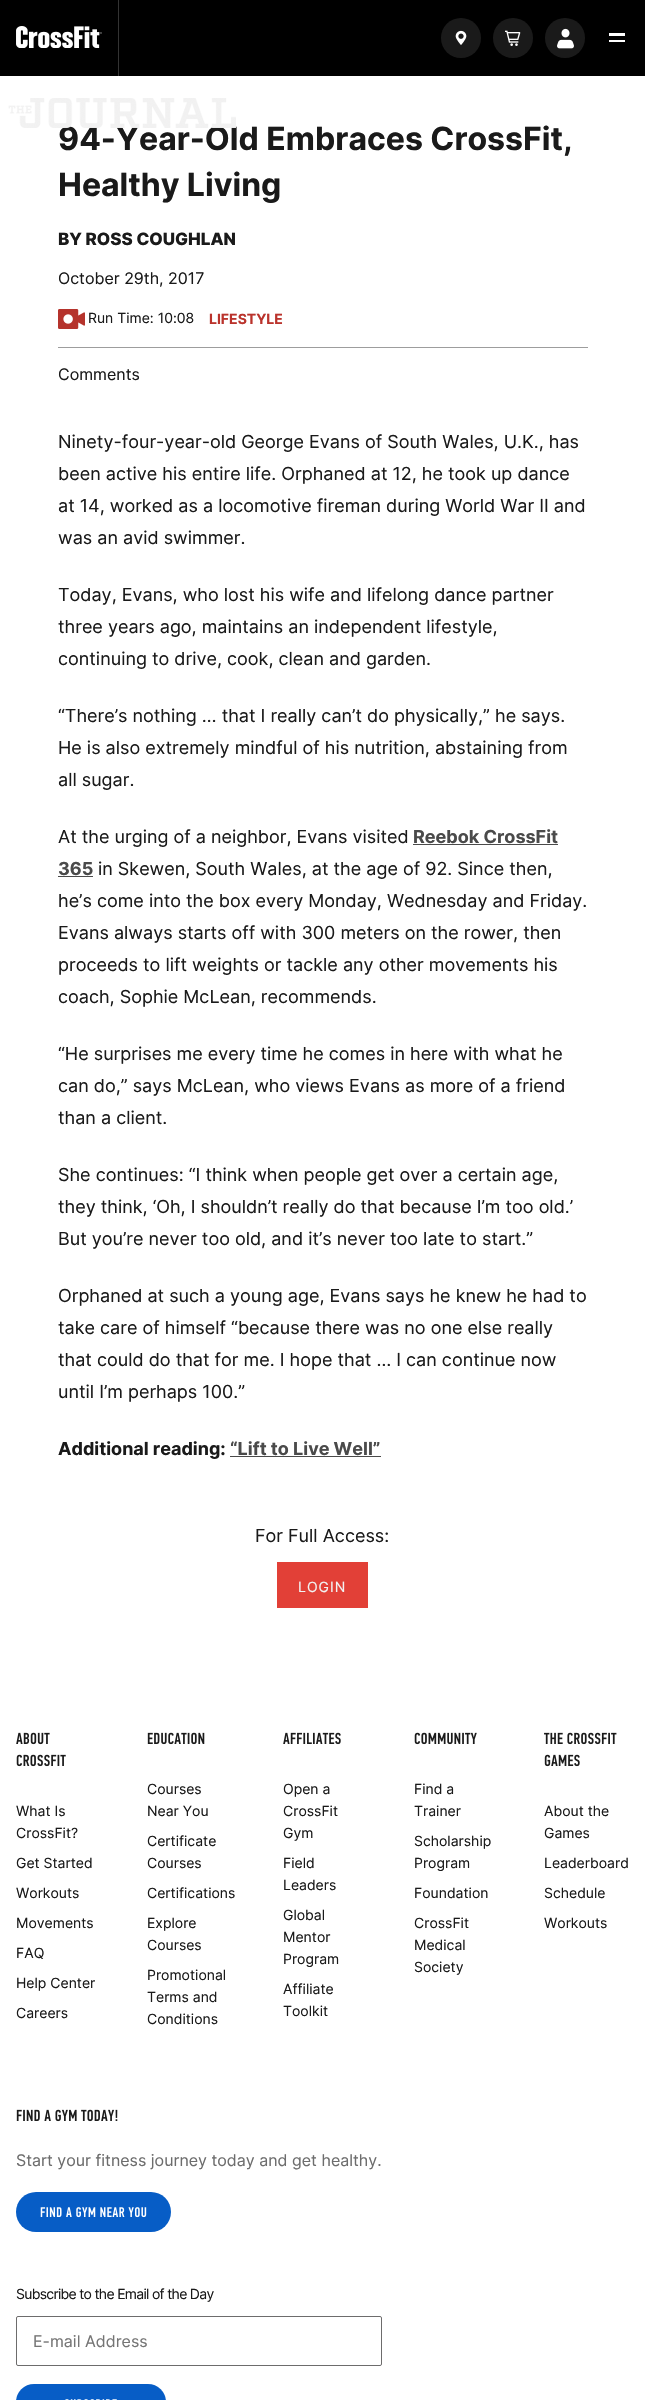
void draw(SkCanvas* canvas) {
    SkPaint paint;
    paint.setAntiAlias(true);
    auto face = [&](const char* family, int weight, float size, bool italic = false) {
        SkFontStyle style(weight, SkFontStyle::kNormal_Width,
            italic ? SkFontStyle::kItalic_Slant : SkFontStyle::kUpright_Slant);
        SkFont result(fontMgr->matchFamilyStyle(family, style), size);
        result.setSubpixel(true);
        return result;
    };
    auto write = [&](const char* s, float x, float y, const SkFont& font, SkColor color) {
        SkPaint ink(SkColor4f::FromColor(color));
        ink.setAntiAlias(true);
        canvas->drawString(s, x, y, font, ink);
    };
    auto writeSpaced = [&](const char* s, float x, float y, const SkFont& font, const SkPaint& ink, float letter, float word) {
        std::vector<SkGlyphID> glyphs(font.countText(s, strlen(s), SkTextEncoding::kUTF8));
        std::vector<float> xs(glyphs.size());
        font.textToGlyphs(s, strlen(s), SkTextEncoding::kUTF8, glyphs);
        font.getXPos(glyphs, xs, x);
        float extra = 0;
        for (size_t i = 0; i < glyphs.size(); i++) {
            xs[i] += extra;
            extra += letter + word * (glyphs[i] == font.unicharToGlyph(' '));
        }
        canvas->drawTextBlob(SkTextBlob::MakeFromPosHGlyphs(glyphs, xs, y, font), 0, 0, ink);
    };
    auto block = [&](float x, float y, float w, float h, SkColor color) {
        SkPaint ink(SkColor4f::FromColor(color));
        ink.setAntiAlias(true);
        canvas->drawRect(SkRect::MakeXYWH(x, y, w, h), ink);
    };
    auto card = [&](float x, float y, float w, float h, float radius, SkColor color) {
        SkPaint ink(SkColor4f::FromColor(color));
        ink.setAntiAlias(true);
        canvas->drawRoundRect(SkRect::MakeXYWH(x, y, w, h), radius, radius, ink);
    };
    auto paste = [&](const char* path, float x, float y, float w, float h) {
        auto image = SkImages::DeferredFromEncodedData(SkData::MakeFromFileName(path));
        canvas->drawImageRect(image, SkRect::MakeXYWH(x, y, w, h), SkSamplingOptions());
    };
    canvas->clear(SK_ColorWHITE);
    block(0, 0, 645, 76, SK_ColorBLACK);
    block(118, 0, 1, 76, SkColorSetRGB(51, 51, 51));
    paste("pic1.png", 16, 26, 86, 22);
    paint.setColor(SkColorSetRGB(26, 26, 26));
    canvas->drawCircle(461, 38, 20, paint);
    paste("pic2.png", 455, 30, 12, 15);
    canvas->drawCircle(513, 38, 20, paint);
    paste("pic3.png", 505, 30, 16, 16);
    canvas->drawCircle(565, 38, 20, paint);
    paste("pic4.png", 557, 28, 17, 21);
    block(609, 33, 16, 3, SK_ColorWHITE);
    block(609, 40, 16, 2, SK_ColorWHITE);
    auto kFont1 = face("Inter", 700, 32);
    write("94-Year-Old Embraces CrossFit,", 58, 150, kFont1, SkColorSetRGB(26, 26, 26));
    paste("pic5.png", 8, 98, 228, 30);
    write("Healthy Living", 58, 196, kFont1, SkColorSetRGB(26, 26, 26));
    auto kFont2 = face("Inter", 800, 17);
    write("BY ROSS COUGHLAN", 58, 245, kFont2, SkColorSetRGB(26, 26, 26));
    auto kFont3 = face("Inter", 400, 16);
    write("October 29th, 2017", 58, 284, kFont3, SkColorSetRGB(26, 26, 26));
    block(58, 347, 530, 1, SkColorSetRGB(157, 157, 157));
    paste("pic6.png", 58, 309, 27, 20);
    auto kFont4 = face("Inter", 400, 14);
    write("Run Time: 10:08", 88, 323, kFont4, SkColorSetRGB(26, 26, 26));
    auto kFont5 = face("Inter", 700, 14);
    write("LIFESTYLE", 209, 324, kFont5, SkColorSetRGB(186, 51, 44));
    write("Comments", 58, 380, kFont3, SkColorSetRGB(26, 26, 26));
    auto kFont6 = face("Inter", 400, 18);
    write("Ninety-four-year-old George Evans of South Wales, U.K., has", 58, 448, kFont6, SkColorSetRGB(26, 26, 26));
    write("been active his entire life. Orphaned at 12, he took up dance", 58, 480, kFont6, SkColorSetRGB(26, 26, 26));
    write("at 14, worked as a locomotive fireman during World War II and", 58, 512, kFont6, SkColorSetRGB(26, 26, 26));
    write("was an avid swimmer.", 58, 544, kFont6, SkColorSetRGB(26, 26, 26));
    write("Today, Evans, who lost his wife and lifelong dance partner", 58, 601, kFont6, SkColorSetRGB(26, 26, 26));
    write("three years ago, maintains an independent lifestyle,", 58, 633, kFont6, SkColorSetRGB(26, 26, 26));
    write("continuing to drive, cook, clean and garden.", 58, 665, kFont6, SkColorSetRGB(26, 26, 26));
    write("“There’s nothing … that I really can’t do physically,” he says.", 58, 722, kFont6, SkColorSetRGB(26, 26, 26));
    write("He is also extremely mindful of his nutrition, abstaining from", 58, 754, kFont6, SkColorSetRGB(26, 26, 26));
    write("all sugar.", 58, 786, kFont6, SkColorSetRGB(26, 26, 26));
    write("At the urging of a neighbor, Evans visited", 58, 843, kFont6, SkColorSetRGB(26, 26, 26));
    auto kFont7 = face("Inter", 700, 18);
    write("Reebok CrossFit", 413, 843, kFont7, SkColorSetRGB(74, 74, 74));
    block(413, 844, 145, 1, SkColorSetRGB(74, 74, 74));
    write("365", 58, 875, kFont7, SkColorSetRGB(74, 74, 74));
    block(58, 876, 35, 1, SkColorSetRGB(74, 74, 74));
    write("in Skewen, South Wales, at the age of 92. Since then,", 98, 875, kFont6, SkColorSetRGB(26, 26, 26));
    write("he’s come into the box every Monday, Wednesday and Friday.", 58, 907, kFont6, SkColorSetRGB(26, 26, 26));
    write("Evans always starts off with 300 meters on the rower, then", 58, 939, kFont6, SkColorSetRGB(26, 26, 26));
    write("proceeds to lift weights or tackle any other movements his", 58, 971, kFont6, SkColorSetRGB(26, 26, 26));
    write("coach, Sophie McLean, recommends.", 58, 1003, kFont6, SkColorSetRGB(26, 26, 26));
    write("“He surprises me every time he comes in here with what he", 58, 1060, kFont6, SkColorSetRGB(26, 26, 26));
    write("can do,” says McLean, who views Evans as more of a friend", 58, 1092, kFont6, SkColorSetRGB(26, 26, 26));
    write("than a client.", 58, 1124, kFont6, SkColorSetRGB(26, 26, 26));
    write("She continues: “I think when people get over a certain age,", 58, 1181, kFont6, SkColorSetRGB(26, 26, 26));
    write("they think, ‘Oh, I shouldn’t really do that because I’m too old.’", 58, 1213, kFont6, SkColorSetRGB(26, 26, 26));
    write("But you’re never too old, and it’s never too late to start.”", 58, 1245, kFont6, SkColorSetRGB(26, 26, 26));
    write("Orphaned at such a young age, Evans says he knew he had to", 58, 1302, kFont6, SkColorSetRGB(26, 26, 26));
    write("take care of himself “because there was no one else really", 58, 1334, kFont6, SkColorSetRGB(26, 26, 26));
    write("that could do that for me. I hope that … I can continue now", 58, 1366, kFont6, SkColorSetRGB(26, 26, 26));
    write("until I’m perhaps 100.”", 58, 1398, kFont6, SkColorSetRGB(26, 26, 26));
    write("Additional reading:", 58, 1455, kFont7, SkColorSetRGB(26, 26, 26));
    write("“Lift to Live Well”", 230, 1455, kFont7, SkColorSetRGB(74, 74, 74));
    block(230, 1456, 151, 1, SkColorSetRGB(74, 74, 74));
    write("For Full Access:", 255, 1542, kFont6, SkColorSetRGB(26, 26, 26));
    block(277, 1562, 91, 46, SkColorSetRGB(226, 64, 55));
    paint.setColor(SkColorSetRGB(242, 242, 242));
    writeSpaced("LOGIN", 298, 1592, kFont4, paint, 1, 0);
    paste("pic7.png", 16, 1732, 34, 13);
    paste("pic8.png", 16, 1754, 50, 13);
    write("What Is", 16, 1816, kFont4, SkColorSetRGB(26, 26, 26));
    write("CrossFit?", 16, 1838, kFont4, SkColorSetRGB(26, 26, 26));
    write("Get Started", 16, 1868, kFont4, SkColorSetRGB(26, 26, 26));
    write("Workouts", 16, 1898, kFont4, SkColorSetRGB(26, 26, 26));
    write("Movements", 16, 1928, kFont4, SkColorSetRGB(26, 26, 26));
    write("FAQ", 16, 1958, kFont4, SkColorSetRGB(26, 26, 26));
    write("Help Center", 16, 1988, kFont4, SkColorSetRGB(26, 26, 26));
    write("Careers", 16, 2018, kFont4, SkColorSetRGB(26, 26, 26));
    paste("pic9.png", 147, 1732, 58, 13);
    write("Courses", 147, 1794, kFont4, SkColorSetRGB(26, 26, 26));
    write("Near You", 147, 1816, kFont4, SkColorSetRGB(26, 26, 26));
    write("Certificate", 147, 1846, kFont4, SkColorSetRGB(26, 26, 26));
    write("Courses", 147, 1868, kFont4, SkColorSetRGB(26, 26, 26));
    write("Certifications", 147, 1898, kFont4, SkColorSetRGB(26, 26, 26));
    write("Explore", 147, 1928, kFont4, SkColorSetRGB(26, 26, 26));
    write("Courses", 147, 1950, kFont4, SkColorSetRGB(26, 26, 26));
    write("Promotional", 147, 1980, kFont4, SkColorSetRGB(26, 26, 26));
    write("Terms and", 147, 2002, kFont4, SkColorSetRGB(26, 26, 26));
    write("Conditions", 147, 2024, kFont4, SkColorSetRGB(26, 26, 26));
    paste("pic10.png", 283, 1732, 58, 13);
    write("Open a", 283, 1794, kFont4, SkColorSetRGB(26, 26, 26));
    write("CrossFit", 283, 1816, kFont4, SkColorSetRGB(26, 26, 26));
    write("Gym", 283, 1838, kFont4, SkColorSetRGB(26, 26, 26));
    write("Field", 283, 1868, kFont4, SkColorSetRGB(26, 26, 26));
    write("Leaders", 283, 1890, kFont4, SkColorSetRGB(26, 26, 26));
    write("Global", 283, 1920, kFont4, SkColorSetRGB(26, 26, 26));
    write("Mentor", 283, 1942, kFont4, SkColorSetRGB(26, 26, 26));
    write("Program", 283, 1964, kFont4, SkColorSetRGB(26, 26, 26));
    write("Affiliate", 283, 1994, kFont4, SkColorSetRGB(26, 26, 26));
    write("Toolkit", 283, 2016, kFont4, SkColorSetRGB(26, 26, 26));
    paste("pic11.png", 414, 1732, 63, 13);
    write("Find a", 414, 1794, kFont4, SkColorSetRGB(26, 26, 26));
    write("Trainer", 414, 1816, kFont4, SkColorSetRGB(26, 26, 26));
    write("Scholarship", 414, 1846, kFont4, SkColorSetRGB(26, 26, 26));
    write("Program", 414, 1868, kFont4, SkColorSetRGB(26, 26, 26));
    write("Foundation", 414, 1898, kFont4, SkColorSetRGB(26, 26, 26));
    write("CrossFit", 414, 1928, kFont4, SkColorSetRGB(26, 26, 26));
    write("Medical", 414, 1950, kFont4, SkColorSetRGB(26, 26, 26));
    write("Society", 414, 1972, kFont4, SkColorSetRGB(26, 26, 26));
    paste("pic12.png", 544, 1732, 73, 13);
    paste("pic13.png", 544, 1754, 36, 13);
    write("About the", 544, 1816, kFont4, SkColorSetRGB(26, 26, 26));
    write("Games", 544, 1838, kFont4, SkColorSetRGB(26, 26, 26));
    write("Leaderboard", 544, 1868, kFont4, SkColorSetRGB(26, 26, 26));
    write("Schedule", 544, 1898, kFont4, SkColorSetRGB(26, 26, 26));
    write("Workouts", 544, 1928, kFont4, SkColorSetRGB(26, 26, 26));
    paste("pic14.png", 16, 2109, 102, 13);
    write("Start your fitness journey today and get healthy.", 16, 2166, kFont3, SkColorSetRGB(109, 109, 109));
    card(16, 2192, 155, 40, 20, SkColorSetRGB(7, 93, 198));
    paste("pic15.png", 40, 2207, 107, 11);
    paint.setColor(SkColorSetRGB(26, 26, 26));
    writeSpaced("Subscribe to the Email of the Day", 16, 2299, kFont4, paint, -0.7f, 0);
    paint.setStyle(SkPaint::kStroke_Style);
    paint.setStrokeWidth(1);
    paint.setColor(SkColorSetRGB(109, 108, 108));
    canvas->drawRoundRect(SkRect::MakeXYWH(16.5f, 2316.5f, 365, 49), 1.5f, 1.5f, paint);
    write("E-mail Address", 33, 2347, kFont3, SkColorSetRGB(117, 117, 117));
    card(16, 2384, 150, 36, 20, SkColorSetRGB(7, 93, 198));
    paste("pic16.png", 65, 2399, 52, 1);
}
